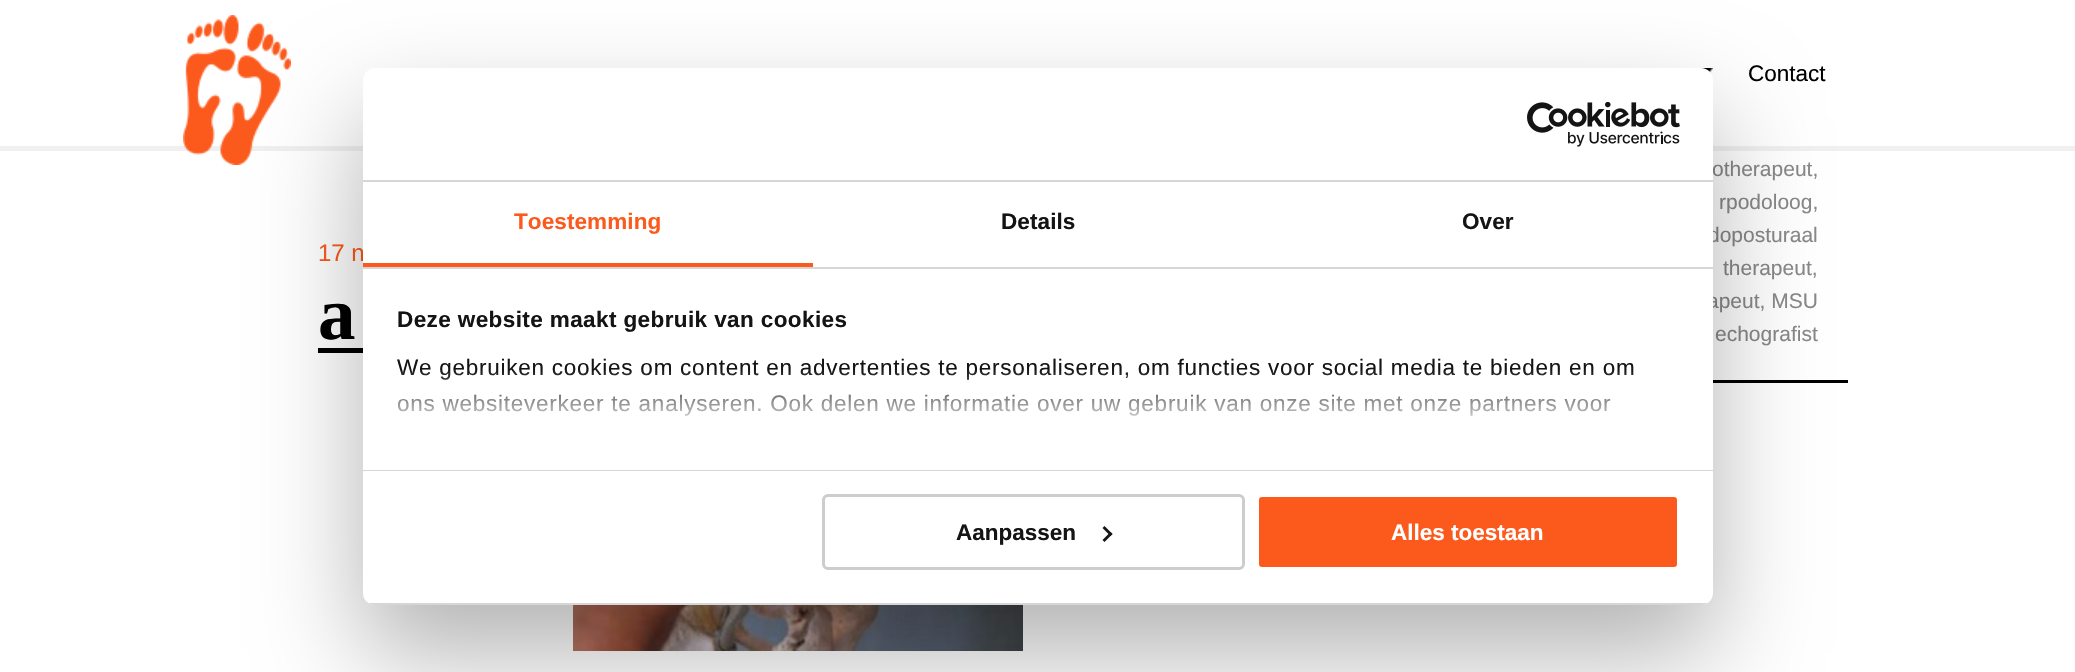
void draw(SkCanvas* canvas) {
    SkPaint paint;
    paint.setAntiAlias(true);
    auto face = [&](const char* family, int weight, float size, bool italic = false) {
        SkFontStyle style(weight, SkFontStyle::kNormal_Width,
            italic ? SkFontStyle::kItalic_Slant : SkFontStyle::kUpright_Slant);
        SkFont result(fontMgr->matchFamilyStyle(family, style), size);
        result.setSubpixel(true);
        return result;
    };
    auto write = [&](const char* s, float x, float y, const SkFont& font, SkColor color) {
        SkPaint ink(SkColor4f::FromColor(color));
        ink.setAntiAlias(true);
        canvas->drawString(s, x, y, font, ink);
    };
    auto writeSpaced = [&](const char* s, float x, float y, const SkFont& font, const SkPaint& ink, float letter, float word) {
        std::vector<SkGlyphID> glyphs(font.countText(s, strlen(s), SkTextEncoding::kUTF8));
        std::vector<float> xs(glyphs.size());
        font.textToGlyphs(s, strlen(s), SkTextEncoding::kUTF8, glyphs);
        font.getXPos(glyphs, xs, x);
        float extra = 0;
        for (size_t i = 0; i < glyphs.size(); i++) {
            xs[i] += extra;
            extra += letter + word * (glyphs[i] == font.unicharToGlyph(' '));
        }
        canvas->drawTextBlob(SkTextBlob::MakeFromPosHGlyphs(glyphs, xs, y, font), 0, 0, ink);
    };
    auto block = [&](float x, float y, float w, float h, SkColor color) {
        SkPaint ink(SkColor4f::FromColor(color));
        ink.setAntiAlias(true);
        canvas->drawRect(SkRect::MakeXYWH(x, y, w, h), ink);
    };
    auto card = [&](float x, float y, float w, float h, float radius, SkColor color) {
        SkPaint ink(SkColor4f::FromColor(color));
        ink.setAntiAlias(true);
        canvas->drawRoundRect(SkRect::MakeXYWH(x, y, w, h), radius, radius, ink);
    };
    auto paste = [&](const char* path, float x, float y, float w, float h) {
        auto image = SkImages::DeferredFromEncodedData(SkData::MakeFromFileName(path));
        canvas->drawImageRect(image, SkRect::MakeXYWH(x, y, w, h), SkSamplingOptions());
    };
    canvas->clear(SK_ColorWHITE);
    block(0, 146, 2075, 5, SkColorSetRGB(240, 240, 240));
    paste("pic1.png", 183, 15, 108, 150);
    paste("pic2.png", 1701, 68, 12, 6);
    auto kFont1 = face("Liberation Sans", 400, 22.5f);
    write("Contact", 1748, 81, kFont1, SK_ColorBLACK);
    auto kFont2 = face("Liberation Sans", 400, 24);
    write("17 n", 318, 261, kFont2, SkColorSetRGB(252, 90, 29));
    block(1713, 380, 135, 3, SK_ColorBLACK);
    auto kFont3 = face("Liberation Sans", 400, 21);
    write("otherapeut,", 1712, 176, kFont3, SkColorSetRGB(136, 136, 136));
    write("rpodoloog,", 1719, 209, kFont3, SkColorSetRGB(136, 136, 136));
    write("doposturaal", 1708, 242, kFont3, SkColorSetRGB(136, 136, 136));
    write("therapeut,", 1723, 275, kFont3, SkColorSetRGB(136, 136, 136));
    write("apeut, MSU", 1707, 308, kFont3, SkColorSetRGB(136, 136, 136));
    write("echografist", 1715, 341, kFont3, SkColorSetRGB(136, 136, 136));
    block(318, 348, 45, 5, SK_ColorBLACK);
    auto kFont4 = face("Liberation Serif", 700, 75);
    write("a", 318, 339, kFont4, SK_ColorBLACK);
    paste("pic3.png", 573, 605, 450, 46);
    paint.setColor(SkColorSetARGB(77, 0, 0, 0));
    paint.setMaskFilter(SkMaskFilter::MakeBlur(kNormal_SkBlurStyle, 51));
    canvas->drawRoundRect(SkRect::MakeXYWH(363, 116, 1350, 537), 12, 12, paint);
    paint.setMaskFilter(nullptr);
    card(363, 68, 1350, 537, 12, SK_ColorWHITE);
    block(363, 180, 1350, 2, SkColorSetRGB(214, 214, 214));
    paste("pic4.png", 1527, 102, 153, 45);
    block(363, 267, 1350, 2, SkColorSetRGB(214, 214, 214));
    block(363, 263, 450, 4, SkColorSetRGB(252, 90, 29));
    auto kFont5 = face("Liberation Sans", 700, 22.5f);
    paint.setColor(SkColorSetRGB(252, 90, 29));
    writeSpaced("Toestemming", 514, 229, kFont5, paint, 0.1f, 0);
    paint.setColor(SkColorSetRGB(20, 20, 20));
    writeSpaced("Details", 1001, 229, kFont5, paint, 0.1f, 0);
    writeSpaced("Over", 1462, 229, kFont5, paint, 0.1f, 0);
    block(363, 470, 1350, 1, SkColorSetRGB(214, 214, 214));
    writeSpaced("Deze website maakt gebruik van cookies", 397, 327, kFont5, paint, 0.4f, 0);
    writeSpaced("We gebruiken cookies om content en advertenties te personaliseren, om functies voor social media te bieden en om", 397, 375, kFont1, paint, 0.75f, 0);
    writeSpaced("ons websiteverkeer te analyseren. Ook delen we informatie over uw gebruik van onze site met onze partners voor", 397, 411, kFont1, paint, 0.75f, 0);
    {
        const SkColor colors[] = {SK_ColorWHITE, SkColorSetARGB(204, 255, 255, 255), SkColorSetARGB(0, 255, 255, 255)};
        const float stops[] = {0, 0.5f, 1};
        const SkPoint ends[] = {{1023, 469}, {1023, 369}};
        paint.setShader(SkGradientShader::MakeLinear(ends, colors, stops, 3, SkTileMode::kClamp));
        paint.setAlpha(255);
    }
    canvas->drawRect(SkRect::MakeXYWH(397, 370, 1236, 46), paint);
    canvas->save();
    canvas->clipPath(SkPathBuilder().moveTo(375, 68).lineTo(1701, 68).cubicTo(1707.5f, 68, 1713, 73.5f, 1713, 80).lineTo(1713, 593).cubicTo(1713, 599.5f, 1707.5f, 605, 1701, 605).lineTo(375, 605).cubicTo(368.5f, 605, 363, 599.5f, 363, 593).lineTo(363, 80).cubicTo(363, 73.5f, 368.5f, 68, 375, 68).close().detach(), true);
    block(363, 603, 1350, 2, SkColorSetRGB(214, 214, 214));
    canvas->restore();
    paint.setStyle(SkPaint::kStroke_Style);
    paint.setStrokeWidth(3);
    paint.setShader(nullptr);
    paint.setColor(SkColorSetRGB(205, 205, 205));
    canvas->drawRoundRect(SkRect::MakeXYWH(823.5f, 495.5f, 420, 73), 4.5f, 4.5f, paint);
    write("Aanpassen", 956, 540, kFont5, SkColorSetRGB(20, 20, 20));
    paint.setStyle(SkPaint::kFill_Style);
    paint.setColor(SkColorSetRGB(20, 20, 20));
    canvas->drawPath(SkPathBuilder().moveTo(1104.5f, 526).lineTo(1112.5f, 534).lineTo(1110.5f, 536).lineTo(1102.5f, 528).close().detach(), paint);
    canvas->drawPath(SkPathBuilder().moveTo(1110.5f, 532).lineTo(1112.5f, 534).lineTo(1104.5f, 542).lineTo(1102.5f, 540).close().detach(), paint);
    paint.setColor(SkColorSetRGB(252, 90, 29));
    canvas->drawRoundRect(SkRect::MakeXYWH(1257.5f, 495.5f, 421, 73), 4.5f, 4.5f, paint);
    paint.setStyle(SkPaint::kStroke_Style);
    paint.setColor(SK_ColorWHITE);
    canvas->drawRoundRect(SkRect::MakeXYWH(1257.5f, 495.5f, 421, 73), 4.5f, 4.5f, paint);
    write("Alles toestaan", 1391, 540, kFont5, SK_ColorWHITE);
}
